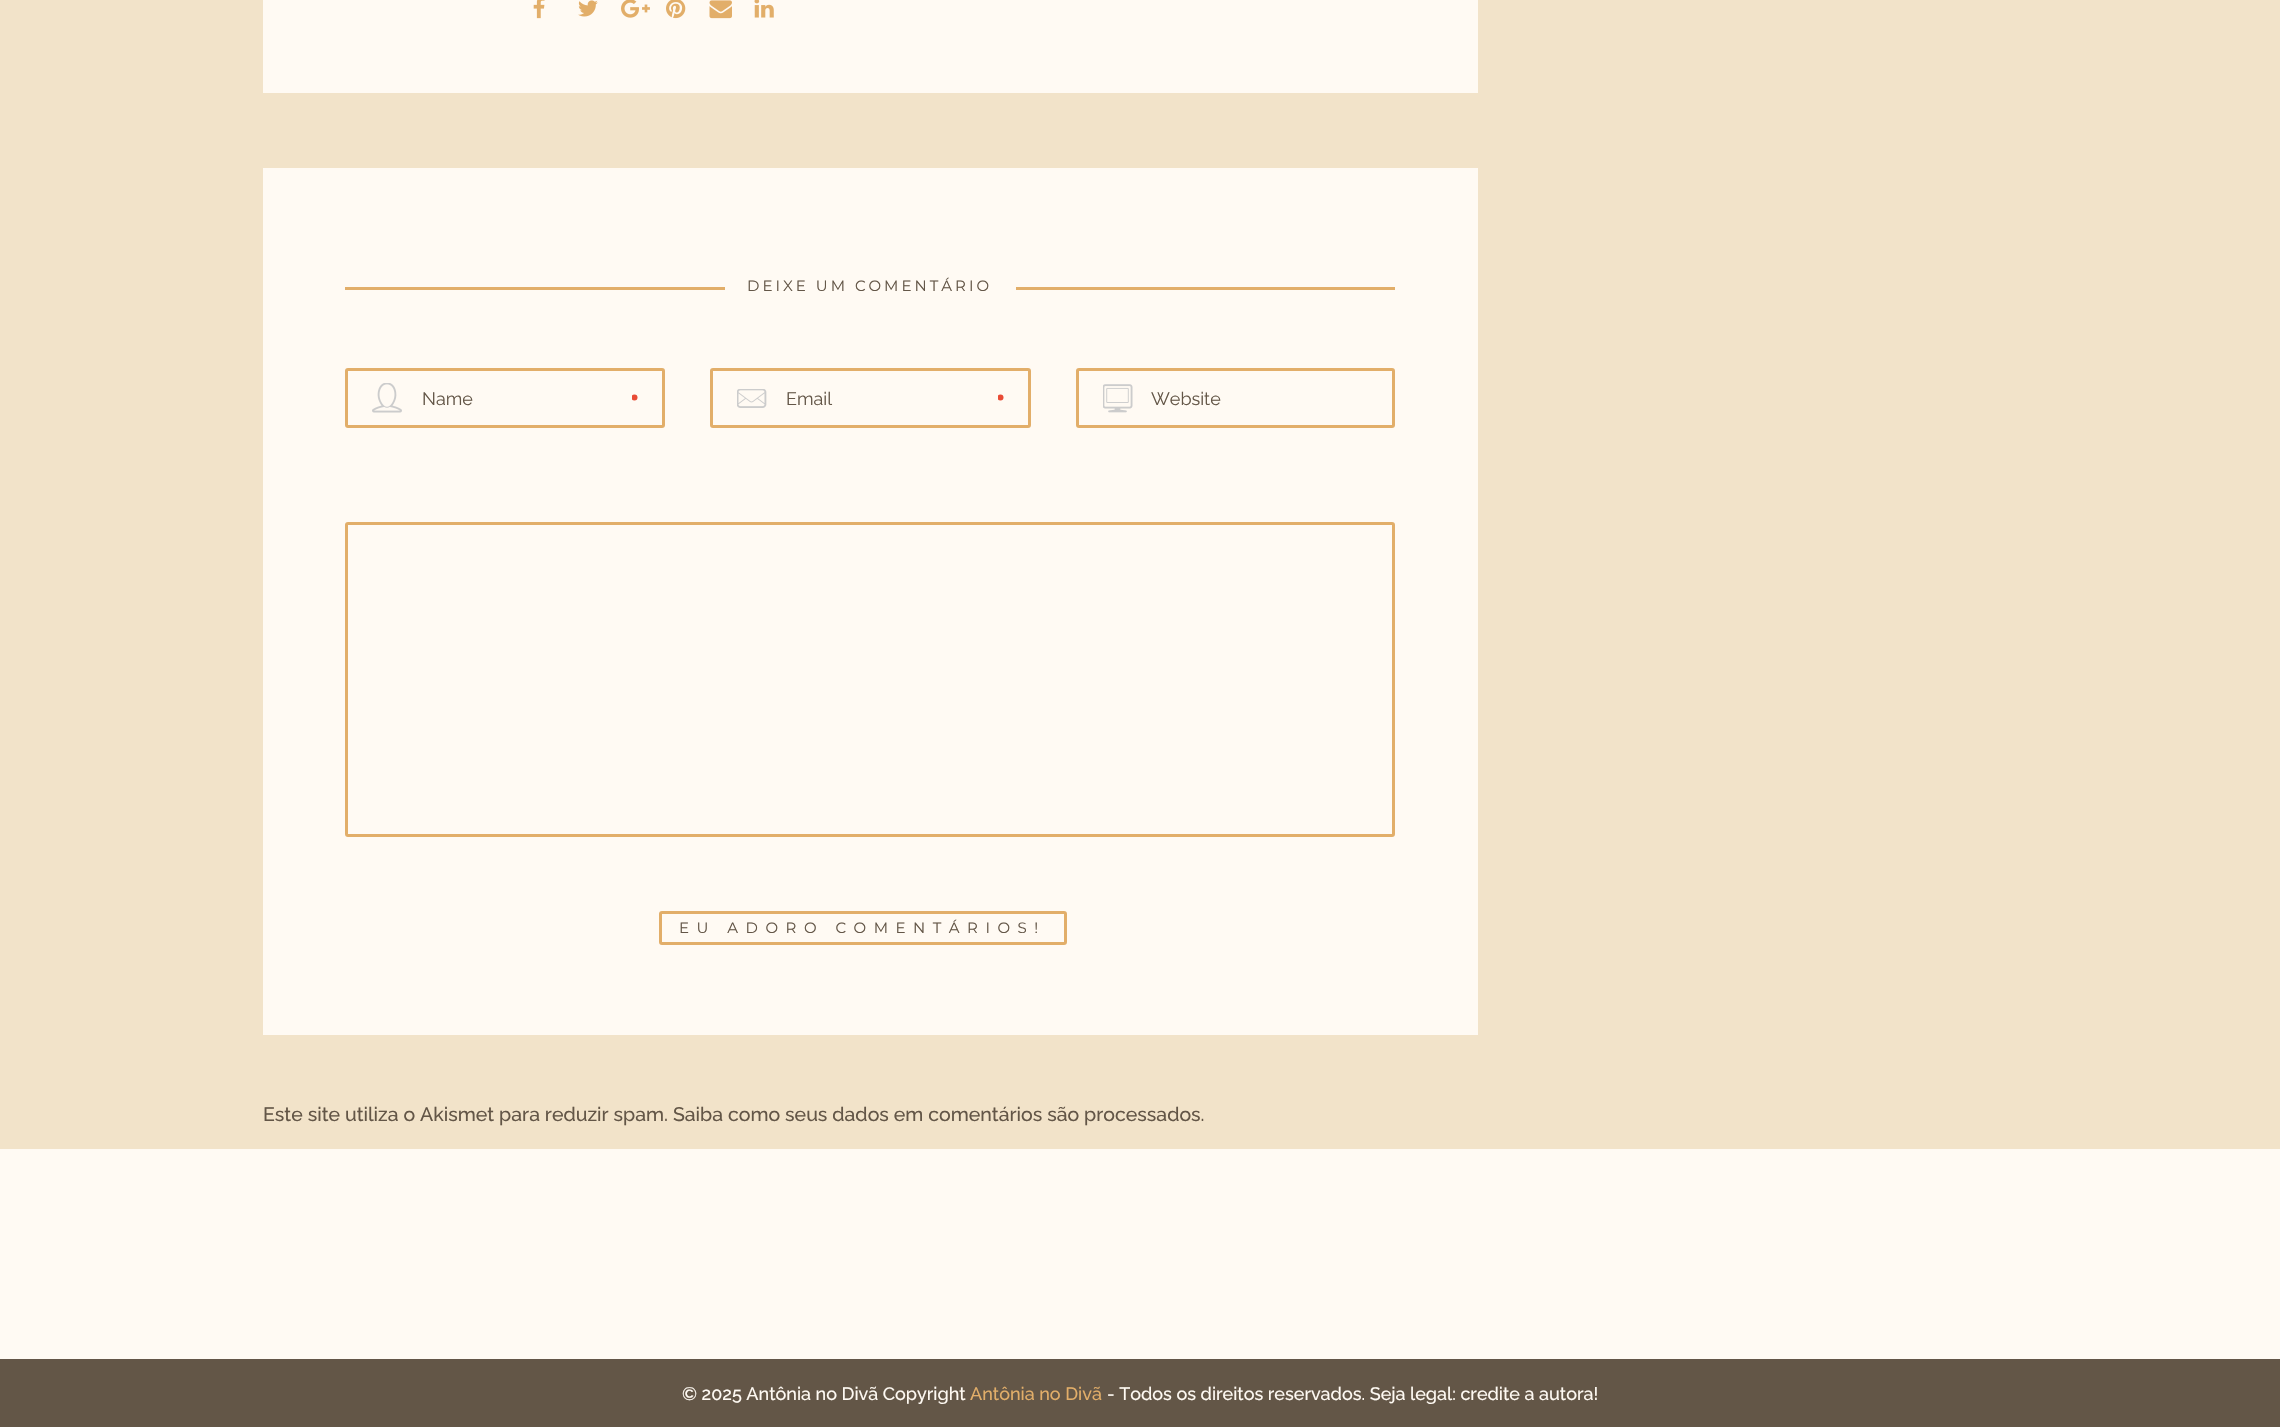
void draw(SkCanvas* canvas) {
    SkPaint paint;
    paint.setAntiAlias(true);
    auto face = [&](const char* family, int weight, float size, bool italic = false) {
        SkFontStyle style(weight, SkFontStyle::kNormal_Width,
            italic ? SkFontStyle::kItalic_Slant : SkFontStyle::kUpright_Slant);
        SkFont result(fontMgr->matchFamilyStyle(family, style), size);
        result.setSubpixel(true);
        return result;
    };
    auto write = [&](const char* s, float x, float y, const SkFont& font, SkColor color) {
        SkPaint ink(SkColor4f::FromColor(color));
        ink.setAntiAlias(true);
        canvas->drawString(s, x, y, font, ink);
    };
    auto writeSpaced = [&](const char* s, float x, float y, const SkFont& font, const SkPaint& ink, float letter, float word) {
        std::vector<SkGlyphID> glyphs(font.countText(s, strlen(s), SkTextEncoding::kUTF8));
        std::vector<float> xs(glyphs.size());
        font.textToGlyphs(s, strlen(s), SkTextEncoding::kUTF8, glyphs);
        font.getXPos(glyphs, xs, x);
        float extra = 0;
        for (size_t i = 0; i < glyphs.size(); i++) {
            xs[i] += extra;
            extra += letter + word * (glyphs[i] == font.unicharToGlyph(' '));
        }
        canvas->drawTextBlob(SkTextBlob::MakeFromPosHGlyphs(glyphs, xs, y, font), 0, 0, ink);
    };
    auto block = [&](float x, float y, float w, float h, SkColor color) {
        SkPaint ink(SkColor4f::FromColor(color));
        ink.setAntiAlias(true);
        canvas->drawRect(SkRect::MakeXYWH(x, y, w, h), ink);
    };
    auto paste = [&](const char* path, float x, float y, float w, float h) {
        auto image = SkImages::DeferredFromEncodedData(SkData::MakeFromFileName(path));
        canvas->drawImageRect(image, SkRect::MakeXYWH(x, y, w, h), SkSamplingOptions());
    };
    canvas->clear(SkColorSetRGB(242, 227, 201));
    block(263, 0, 1215, 93, SkColorSetRGB(255, 250, 243));
    paste("pic1.png", 533, 0, 12, 19);
    paste("pic2.png", 578, 0, 20, 17);
    paste("pic3.png", 621, 0, 29, 18);
    paste("pic4.png", 666, 0, 20, 19);
    paste("pic5.png", 709, 0, 23, 19);
    paste("pic6.png", 754, 0, 20, 18);
    block(263, 168, 1215, 867, SkColorSetRGB(255, 250, 243));
    block(345, 287, 380, 3, SkColorSetRGB(226, 174, 105));
    auto kFont1 = face("Montserrat", 400, 15);
    paint.setColor(SkColorSetRGB(99, 86, 71));
    writeSpaced("DEIXE UM COMENTÁRIO", 747, 291, kFont1, paint, 3, 0);
    block(1016, 287, 379, 3, SkColorSetRGB(226, 174, 105));
    canvas->save();
    canvas->clipRect(SkRect::MakeXYWH(632, 371, 30, 30));
    paint.setColor(SkColorSetRGB(233, 75, 53));
    canvas->drawCircle(634.5f, 397.5f, 3, paint);
    canvas->restore();
    paste("pic7.png", 372, 383, 30, 30);
    paint.setStyle(SkPaint::kStroke_Style);
    paint.setStrokeWidth(3);
    paint.setColor(SkColorSetRGB(226, 174, 105));
    canvas->drawRoundRect(SkRect::MakeXYWH(346.5f, 369.5f, 317, 57), 1.5f, 1.5f, paint);
    auto kFont2 = face("Raleway", 400, 18);
    write("Name", 422, 405, kFont2, SkColorSetRGB(99, 86, 71));
    canvas->save();
    canvas->clipRect(SkRect::MakeXYWH(998, 371, 30, 30));
    paint.setStyle(SkPaint::kFill_Style);
    paint.setColor(SkColorSetRGB(233, 75, 53));
    canvas->drawCircle(1000.5f, 397.5f, 3, paint);
    canvas->restore();
    paste("pic8.png", 737, 389, 30, 19);
    paint.setStyle(SkPaint::kStroke_Style);
    paint.setColor(SkColorSetRGB(226, 174, 105));
    canvas->drawRoundRect(SkRect::MakeXYWH(711.5f, 369.5f, 318, 57), 1.5f, 1.5f, paint);
    write("Email", 786, 405, kFont2, SkColorSetRGB(99, 86, 71));
    paste("pic9.png", 1103, 384, 30, 29);
    canvas->drawRoundRect(SkRect::MakeXYWH(1077.5f, 369.5f, 316, 57), 1.5f, 1.5f, paint);
    write("Website", 1151, 405, kFont2, SkColorSetRGB(99, 86, 71));
    canvas->drawRoundRect(SkRect::MakeXYWH(346.5f, 523.5f, 1047, 312), 1.5f, 1.5f, paint);
    canvas->drawRoundRect(SkRect::MakeXYWH(660.5f, 912.5f, 405, 31), 1.5f, 1.5f, paint);
    paint.setStyle(SkPaint::kFill_Style);
    paint.setColor(SkColorSetRGB(99, 86, 71));
    writeSpaced("EU ADORO COMENTÁRIOS!", 679, 933, kFont1, paint, 7.5f, 0);
    auto kFont3 = face("Raleway", 500, 19.5f);
    write("Este site utiliza o Akismet para reduzir spam. Saiba como seus dados em comentários são processados.", 263, 1121, kFont3, SkColorSetRGB(99, 86, 71));
    block(0, 1149, 2280, 210, SkColorSetRGB(255, 250, 243));
    block(0, 1359, 2280, 68, SkColorSetRGB(99, 86, 71));
    auto kFont4 = face("Raleway", 500, 18);
    write("© 2025 Antônia no Divã Copyright", 682, 1400, kFont4, SkColorSetRGB(255, 250, 243));
    write("Antônia no Divã", 970, 1400, kFont4, SkColorSetRGB(226, 174, 105));
    write("- Todos os direitos reservados. Seja legal: credite a autora!", 1107, 1400, kFont4, SkColorSetRGB(255, 250, 243));
}
